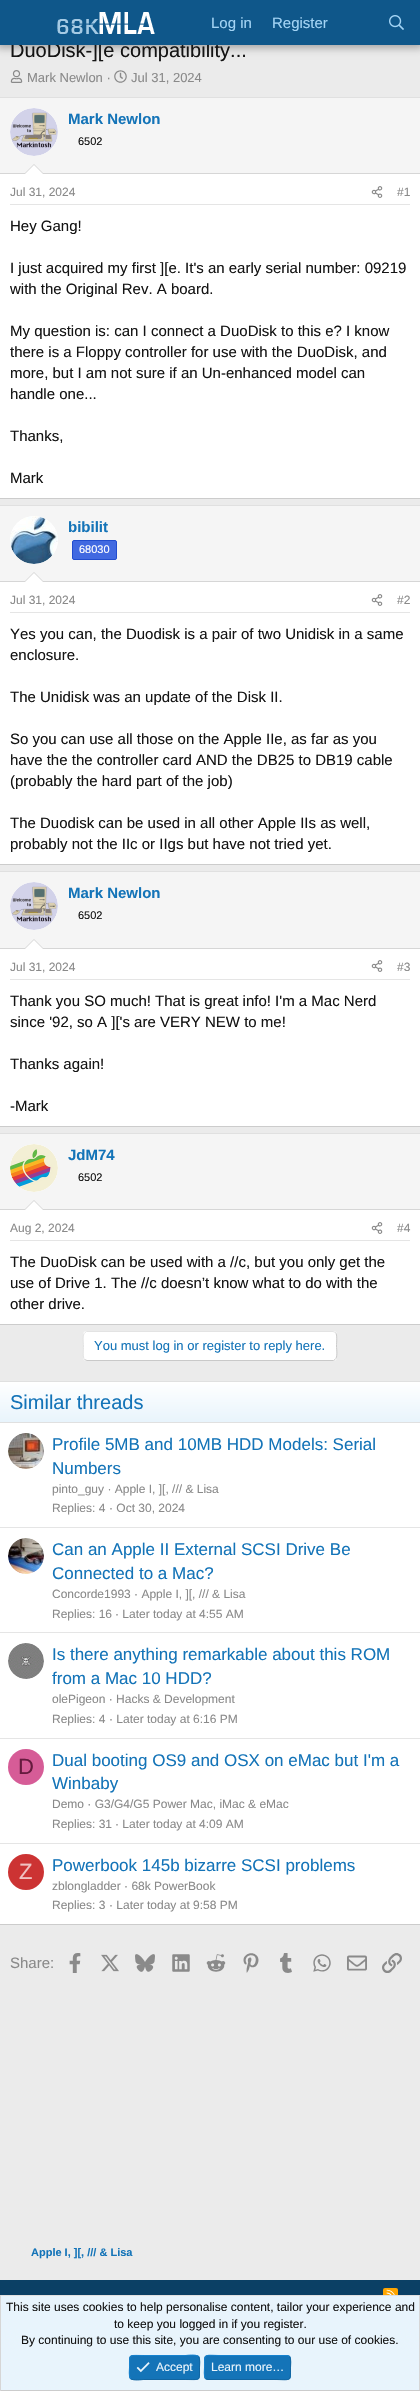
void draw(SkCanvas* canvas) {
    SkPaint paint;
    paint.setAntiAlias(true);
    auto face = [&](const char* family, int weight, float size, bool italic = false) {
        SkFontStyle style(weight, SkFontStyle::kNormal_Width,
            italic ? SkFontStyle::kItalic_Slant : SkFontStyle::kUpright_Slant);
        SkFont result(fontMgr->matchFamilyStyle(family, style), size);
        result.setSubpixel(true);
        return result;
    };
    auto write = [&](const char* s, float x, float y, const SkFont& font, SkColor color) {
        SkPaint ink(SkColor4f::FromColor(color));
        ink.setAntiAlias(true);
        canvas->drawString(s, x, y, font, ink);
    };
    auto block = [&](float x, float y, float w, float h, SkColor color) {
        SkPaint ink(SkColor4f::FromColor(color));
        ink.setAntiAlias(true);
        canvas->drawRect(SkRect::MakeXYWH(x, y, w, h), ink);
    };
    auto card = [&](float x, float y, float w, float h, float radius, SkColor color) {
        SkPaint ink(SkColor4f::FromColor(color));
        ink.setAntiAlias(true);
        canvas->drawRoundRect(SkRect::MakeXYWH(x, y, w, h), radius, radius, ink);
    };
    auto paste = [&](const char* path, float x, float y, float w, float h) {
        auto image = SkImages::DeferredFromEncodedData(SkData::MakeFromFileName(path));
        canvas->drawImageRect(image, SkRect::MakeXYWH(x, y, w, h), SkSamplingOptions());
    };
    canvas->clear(SkColorSetRGB(235, 235, 235));
    paint.setColor(SkColorSetARGB(77, 0, 0, 0));
    paint.setMaskFilter(SkMaskFilter::MakeBlur(kNormal_SkBlurStyle, 4));
    canvas->drawRect(SkRect::MakeXYWH(-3, -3, 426, 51), paint);
    paint.setMaskFilter(nullptr);
    auto kFont1 = face("Liberation Sans", 400, 20);
    write("DuoDisk-][e compatibility...", 10, 57, kFont1, SkColorSetRGB(20, 20, 20));
    block(0, 0, 420, 45, SkColorSetRGB(15, 87, 138));
    paste("pic1.png", 57, 12, 98, 22);
    auto kFont2 = face("Liberation Sans", 400, 15);
    write("Log in", 211, 28, kFont2, SkColorSetRGB(163, 212, 245));
    write("Register", 272, 28, kFont2, SkColorSetRGB(163, 212, 245));
    paste("pic2.png", 389, 15, 15, 15);
    paste("pic3.png", 10, 70, 13, 13);
    auto kFont3 = face("Liberation Sans", 400, 13);
    write("Mark Newlon ·", 27, 82, kFont3, SkColorSetRGB(138, 138, 138));
    paste("pic4.png", 114, 70, 13, 13);
    write("Jul 31, 2024", 131, 82, kFont3, SkColorSetRGB(138, 138, 138));
    block(0, 174, 420, 324, SK_ColorWHITE);
    block(0, 97, 420, 1, SkColorSetRGB(224, 224, 224));
    block(0, 498, 420, 1, SkColorSetRGB(204, 204, 204));
    block(0, 98, 420, 75, SkColorSetRGB(245, 245, 245));
    block(0, 173, 420, 1, SkColorSetRGB(214, 214, 214));
    paint.setColor(SK_ColorWHITE);
    canvas->drawCircle(34, 132, 24, paint);
    paste("pic5.png", 10, 108, 48, 48);
    auto kFont4 = face("Liberation Sans", 700, 15);
    write("Mark Newlon", 68, 124, kFont4, SkColorSetRGB(20, 116, 184));
    auto kFont5 = face("Liberation Sans", 400, 11);
    write("6502", 78, 145, kFont5, SkColorSetRGB(20, 20, 20));
    paint.setColor(SkColorSetRGB(214, 214, 214));
    canvas->drawPath(SkPathBuilder().moveTo(44, 174).lineTo(24, 174).lineTo(34, 164).close().detach(), paint);
    paint.setColor(SK_ColorWHITE);
    canvas->drawPath(SkPathBuilder().moveTo(43, 174).lineTo(25, 174).lineTo(34, 165).close().detach(), paint);
    block(10, 204, 400, 1, SkColorSetRGB(229, 229, 229));
    auto kFont6 = face("Liberation Sans", 400, 12);
    write("Jul 31, 2024", 10, 196, kFont6, SkColorSetRGB(138, 138, 138));
    paste("pic6.png", 371, 186, 12, 12);
    write("#1", 397, 196, kFont6, SkColorSetRGB(138, 138, 138));
    write("Hey Gang!", 10, 231, kFont2, SkColorSetRGB(20, 20, 20));
    write("I just acquired my first ][e. It's an early serial number: 09219", 10, 273, kFont2, SkColorSetRGB(20, 20, 20));
    write("with the Original Rev. A board.", 10, 294, kFont2, SkColorSetRGB(20, 20, 20));
    write("My question is: can I connect a DuoDisk to this e? I know", 10, 336, kFont2, SkColorSetRGB(20, 20, 20));
    write("there is a Floppy controller for use with the DuoDisk, and", 10, 357, kFont2, SkColorSetRGB(20, 20, 20));
    write("more, but I am not sure if an Un-enhanced model can", 10, 378, kFont2, SkColorSetRGB(20, 20, 20));
    write("handle one...", 10, 399, kFont2, SkColorSetRGB(20, 20, 20));
    write("Thanks,", 10, 441, kFont2, SkColorSetRGB(20, 20, 20));
    write("Mark", 10, 483, kFont2, SkColorSetRGB(20, 20, 20));
    block(0, 582, 420, 282, SK_ColorWHITE);
    block(0, 505, 420, 1, SkColorSetRGB(224, 224, 224));
    block(0, 864, 420, 1, SkColorSetRGB(204, 204, 204));
    block(0, 506, 420, 75, SkColorSetRGB(245, 245, 245));
    block(0, 581, 420, 1, SkColorSetRGB(214, 214, 214));
    canvas->drawCircle(34, 540, 24, paint);
    paste("pic7.png", 10, 516, 48, 48);
    write("bibilit", 68, 532, kFont4, SkColorSetRGB(20, 116, 184));
    paint.setColor(SkColorSetRGB(65, 105, 225));
    canvas->drawRoundRect(SkRect::MakeXYWH(72.5f, 540.5f, 44, 19), 1.5f, 1.5f, paint);
    paint.setStyle(SkPaint::kStroke_Style);
    paint.setStrokeWidth(1);
    paint.setColor(SkColorSetRGB(33, 76, 206));
    canvas->drawRoundRect(SkRect::MakeXYWH(72.5f, 540.5f, 44, 19), 1.5f, 1.5f, paint);
    write("68030", 79, 553, kFont5, SK_ColorWHITE);
    paint.setStyle(SkPaint::kFill_Style);
    paint.setColor(SkColorSetRGB(214, 214, 214));
    canvas->drawPath(SkPathBuilder().moveTo(44, 582).lineTo(24, 582).lineTo(34, 572).close().detach(), paint);
    paint.setColor(SK_ColorWHITE);
    canvas->drawPath(SkPathBuilder().moveTo(43, 582).lineTo(25, 582).lineTo(34, 573).close().detach(), paint);
    block(10, 612, 400, 1, SkColorSetRGB(229, 229, 229));
    write("Jul 31, 2024", 10, 604, kFont6, SkColorSetRGB(138, 138, 138));
    paste("pic6.png", 371, 594, 12, 12);
    write("#2", 397, 604, kFont6, SkColorSetRGB(138, 138, 138));
    write("Yes you can, the Duodisk is a pair of two Unidisk in a same", 10, 639, kFont2, SkColorSetRGB(20, 20, 20));
    write("enclosure.", 10, 660, kFont2, SkColorSetRGB(20, 20, 20));
    write("The Unidisk was an update of the Disk II.", 10, 702, kFont2, SkColorSetRGB(20, 20, 20));
    write("So you can use all those on the Apple IIe, as far as you", 10, 744, kFont2, SkColorSetRGB(20, 20, 20));
    write("have the the controller card AND the DB25 to DB19 cable", 10, 765, kFont2, SkColorSetRGB(20, 20, 20));
    write("(probably the hard part of the job)", 10, 786, kFont2, SkColorSetRGB(20, 20, 20));
    write("The Duodisk can be used in all other Apple IIs as well,", 10, 828, kFont2, SkColorSetRGB(20, 20, 20));
    write("probably not the IIc or IIgs but have not tried yet.", 10, 849, kFont2, SkColorSetRGB(20, 20, 20));
    block(0, 949, 420, 177, SK_ColorWHITE);
    block(0, 871, 420, 1, SkColorSetRGB(224, 224, 224));
    block(0, 1126, 420, 1, SkColorSetRGB(204, 204, 204));
    block(0, 872, 420, 76, SkColorSetRGB(245, 245, 245));
    block(0, 948, 420, 1, SkColorSetRGB(214, 214, 214));
    canvas->drawCircle(34, 906, 24, paint);
    paste("pic5.png", 10, 882, 48, 48);
    write("Mark Newlon", 68, 898, kFont4, SkColorSetRGB(20, 116, 184));
    write("6502", 78, 919, kFont5, SkColorSetRGB(20, 20, 20));
    paint.setColor(SkColorSetRGB(214, 214, 214));
    canvas->drawPath(SkPathBuilder().moveTo(44, 949).lineTo(24, 949).lineTo(34, 939).close().detach(), paint);
    paint.setColor(SK_ColorWHITE);
    canvas->drawPath(SkPathBuilder().moveTo(43, 949).lineTo(25, 949).lineTo(34, 940).close().detach(), paint);
    block(10, 979, 400, 1, SkColorSetRGB(229, 229, 229));
    write("Jul 31, 2024", 10, 971, kFont6, SkColorSetRGB(138, 138, 138));
    paste("pic6.png", 371, 960, 12, 12);
    write("#3", 397, 971, kFont6, SkColorSetRGB(138, 138, 138));
    write("Thank you SO much! That is great info! I'm a Mac Nerd", 10, 1006, kFont2, SkColorSetRGB(20, 20, 20));
    write("since '92, so A ]['s are VERY NEW to me!", 10, 1027, kFont2, SkColorSetRGB(20, 20, 20));
    write("Thanks again!", 10, 1069, kFont2, SkColorSetRGB(20, 20, 20));
    write("-Mark", 10, 1111, kFont2, SkColorSetRGB(20, 20, 20));
    block(0, 1210, 420, 114, SK_ColorWHITE);
    block(0, 1133, 420, 1, SkColorSetRGB(224, 224, 224));
    block(0, 1324, 420, 1, SkColorSetRGB(204, 204, 204));
    block(0, 1134, 420, 75, SkColorSetRGB(245, 245, 245));
    block(0, 1209, 420, 1, SkColorSetRGB(214, 214, 214));
    canvas->drawCircle(34, 1168, 24, paint);
    paste("pic8.png", 10, 1144, 48, 48);
    write("JdM74", 68, 1160, kFont4, SkColorSetRGB(20, 116, 184));
    write("6502", 78, 1181, kFont5, SkColorSetRGB(20, 20, 20));
    paint.setColor(SkColorSetRGB(214, 214, 214));
    canvas->drawPath(SkPathBuilder().moveTo(44, 1210).lineTo(24, 1210).lineTo(34, 1200).close().detach(), paint);
    paint.setColor(SK_ColorWHITE);
    canvas->drawPath(SkPathBuilder().moveTo(43, 1210).lineTo(25, 1210).lineTo(34, 1201).close().detach(), paint);
    block(10, 1240, 400, 1, SkColorSetRGB(229, 229, 229));
    write("Aug 2, 2024", 10, 1232, kFont6, SkColorSetRGB(138, 138, 138));
    paste("pic9.png", 371, 1222, 12, 12);
    write("#4", 397, 1232, kFont6, SkColorSetRGB(138, 138, 138));
    write("The DuoDisk can be used with a //c, but you only get the", 10, 1267, kFont2, SkColorSetRGB(20, 20, 20));
    write("use of Drive 1. The //c doesn’t know what to do with the", 10, 1288, kFont2, SkColorSetRGB(20, 20, 20));
    write("other drive.", 10, 1309, kFont2, SkColorSetRGB(20, 20, 20));
    card(83, 1331, 254, 30, 4, SK_ColorWHITE);
    paint.setStyle(SkPaint::kStroke_Style);
    paint.setColor(SkColorSetRGB(201, 201, 201));
    canvas->drawPath(SkPathBuilder().moveTo(335.5f, 1332.5f).cubicTo(337.5f, 1334.5f, 336.5f, 1343, 336.5f, 1346).cubicTo(336.5f, 1349, 338, 1357.5f, 335, 1359.5f).lineTo(333.5f, 1360.5f).lineTo(87, 1360.5f).lineTo(84.5f, 1359.5f).detach(), paint);
    paint.setColor(SkColorSetRGB(227, 227, 227));
    canvas->drawPath(SkPathBuilder().moveTo(84.5f, 1359.5f).cubicTo(82.5f, 1357.5f, 83.5f, 1349, 83.5f, 1346).cubicTo(83.5f, 1343, 82, 1334.5f, 85, 1332.5f).lineTo(86.5f, 1331.5f).lineTo(333, 1331.5f).lineTo(335.5f, 1332.5f).detach(), paint);
    write("You must log in or register to reply here.", 94, 1350, kFont3, SkColorSetRGB(20, 116, 184));
    block(0, 1423, 420, 501, SK_ColorWHITE);
    block(0, 1381, 420, 1, SkColorSetRGB(224, 224, 224));
    block(0, 1924, 420, 1, SkColorSetRGB(204, 204, 204));
    paint.setStyle(SkPaint::kFill_Style);
    {
        const SkColor colors[] = {SkColorSetRGB(232, 244, 252), SK_ColorWHITE};
        const float stops[] = {0, 1};
        const SkPoint ends[] = {{210, 1422}, {210, 1382}};
        paint.setShader(SkGradientShader::MakeLinear(ends, colors, stops, 2, SkTileMode::kClamp));
        paint.setAlpha(255);
    }
    canvas->drawRect(SkRect::MakeXYWH(0, 1382, 420, 40), paint);
    block(0, 1422, 420, 1, SkColorSetRGB(224, 224, 224));
    write("Similar threads", 10, 1409, kFont1, SkColorSetRGB(20, 116, 184));
    paste("pic10.png", 8, 1433, 36, 36);
    auto kFont7 = face("Liberation Sans", 400, 17);
    write("Profile 5MB and 10MB HDD Models: Serial", 52, 1450, kFont7, SkColorSetRGB(20, 116, 184));
    write("Numbers", 52, 1474, kFont7, SkColorSetRGB(20, 116, 184));
    write("pinto_guy · Apple I, ][, /// & Lisa", 52, 1493, kFont6, SkColorSetRGB(138, 138, 138));
    write("Replies: 4", 52, 1512, kFont6, SkColorSetRGB(138, 138, 138));
    write("· Oct 30, 2024", 109, 1512, kFont6, SkColorSetRGB(138, 138, 138));
    block(0, 1527, 420, 1, SkColorSetRGB(229, 229, 229));
    paste("pic11.png", 8, 1538, 36, 36);
    write("Can an Apple II External SCSI Drive Be", 52, 1555, kFont7, SkColorSetRGB(20, 116, 184));
    write("Connected to a Mac?", 52, 1579, kFont7, SkColorSetRGB(20, 116, 184));
    write("Concorde1993 · Apple I, ][, /// & Lisa", 52, 1598, kFont6, SkColorSetRGB(138, 138, 138));
    write("Replies: 16", 52, 1618, kFont6, SkColorSetRGB(138, 138, 138));
    write("· Later today at 4:55 AM", 115, 1618, kFont6, SkColorSetRGB(138, 138, 138));
    block(0, 1632, 420, 1, SkColorSetRGB(229, 229, 229));
    paste("pic12.png", 8, 1643, 36, 36);
    write("Is there anything remarkable about this ROM", 52, 1660, kFont7, SkColorSetRGB(20, 116, 184));
    write("from a Mac 10 HDD?", 52, 1684, kFont7, SkColorSetRGB(20, 116, 184));
    write("olePigeon · Hacks & Development", 52, 1703, kFont6, SkColorSetRGB(138, 138, 138));
    write("Replies: 4", 52, 1723, kFont6, SkColorSetRGB(138, 138, 138));
    write("· Later today at 6:16 PM", 109, 1723, kFont6, SkColorSetRGB(138, 138, 138));
    block(0, 1738, 420, 1, SkColorSetRGB(229, 229, 229));
    paint.setShader(nullptr);
    paint.setColor(SkColorSetRGB(214, 92, 151));
    canvas->drawCircle(26, 1767, 18, paint);
    auto kFont8 = face("Liberation Sans", 400, 22);
    write("D", 18, 1774, kFont8, SkColorSetRGB(102, 26, 62));
    write("Dual booting OS9 and OSX on eMac but I'm a", 52, 1766, kFont7, SkColorSetRGB(20, 116, 184));
    write("Winbaby", 52, 1789, kFont7, SkColorSetRGB(20, 116, 184));
    write("Demo · G3/G4/G5 Power Mac, iMac & eMac", 52, 1808, kFont6, SkColorSetRGB(138, 138, 138));
    write("Replies: 31", 52, 1828, kFont6, SkColorSetRGB(138, 138, 138));
    write("· Later today at 4:09 AM", 115, 1828, kFont6, SkColorSetRGB(138, 138, 138));
    block(0, 1843, 420, 1, SkColorSetRGB(229, 229, 229));
    paint.setColor(SkColorSetRGB(204, 51, 51));
    canvas->drawCircle(26, 1872, 18, paint);
    write("Z", 19, 1879, kFont8, SkColorSetRGB(240, 194, 194));
    write("Powerbook 145b bizarre SCSI problems", 52, 1871, kFont7, SkColorSetRGB(20, 116, 184));
    write("zblongladder · 68k PowerBook", 52, 1890, kFont6, SkColorSetRGB(138, 138, 138));
    write("Replies: 3", 52, 1909, kFont6, SkColorSetRGB(138, 138, 138));
    write("· Later today at 9:58 PM", 109, 1909, kFont6, SkColorSetRGB(138, 138, 138));
    write("Share:", 10, 1968, kFont2, SkColorSetRGB(138, 138, 138));
    paste("pic13.png", 69, 1953, 12, 20);
    paste("pic14.png", 101, 1954, 18, 18);
    paste("pic15.png", 135, 1954, 20, 18);
    paste("pic16.png", 172, 1954, 18, 18);
    paste("pic17.png", 206, 1954, 20, 18);
    paste("pic18.png", 243, 1953, 16, 20);
    paste("pic19.png", 280, 1953, 12, 20);
    paste("pic20.png", 313, 1954, 18, 18);
    paste("pic21.png", 347, 1955, 20, 16);
    paste("pic22.png", 382, 1953, 20, 20);
    auto kFont9 = face("Liberation Sans", 700, 11);
    write("Apple I, ][, /// & Lisa", 31, 2256, kFont9, SkColorSetRGB(20, 116, 184));
    block(0, 2280, 420, 15, SkColorSetRGB(11, 64, 101));
    card(383, 2288, 15, 15, 2, SkColorSetRGB(255, 165, 0));
    paste("pic23.png", 386, 2289, 9, 6);
    block(1, 2296, 418, 94, SkColorSetRGB(232, 244, 252));
    block(0, 2295, 420, 1, SkColorSetRGB(224, 224, 224));
    block(419, 2295, 1, 96, SkColorSetRGB(214, 214, 214));
    block(0, 2390, 420, 1, SkColorSetRGB(204, 204, 204));
    block(0, 2295, 1, 96, SkColorSetRGB(214, 214, 214));
    write("This site uses cookies to help personalise content, tailor your experience and", 6, 2311, kFont6, SkColorSetRGB(20, 20, 20));
    write("to keep you logged in if you register.", 114, 2328, kFont6, SkColorSetRGB(20, 20, 20));
    write("By continuing to use this site, you are consenting to our use of cookies.", 21, 2344, kFont6, SkColorSetRGB(20, 20, 20));
    card(129, 2355, 71, 25, 4, SkColorSetRGB(20, 116, 184));
    paint.setStyle(SkPaint::kStroke_Style);
    paint.setColor(SkColorSetRGB(18, 101, 161));
    canvas->drawPath(SkPathBuilder().moveTo(198.5f, 2356.5f).cubicTo(200.5f, 2359, 199.5f, 2365, 199.5f, 2367.5f).cubicTo(199.5f, 2381.5f, 200.5f, 2379.5f, 185.5f, 2379.5f).lineTo(143.5f, 2379.5f).cubicTo(142.5f, 2379.5f, 133, 2381, 130.5f, 2378.5f).detach(), paint);
    paint.setColor(SkColorSetRGB(23, 130, 207));
    canvas->drawPath(SkPathBuilder().moveTo(130.5f, 2378.5f).cubicTo(128.5f, 2376, 129.5f, 2370, 129.5f, 2367.5f).cubicTo(129.5f, 2353.5f, 128.5f, 2355.5f, 143.5f, 2355.5f).lineTo(185.5f, 2355.5f).cubicTo(186.5f, 2355.5f, 196, 2354, 198.5f, 2356.5f).detach(), paint);
    paste("pic24.png", 136, 2362, 14, 11);
    write("Accept", 156, 2371, kFont6, SkColorSetRGB(232, 244, 252));
    card(204, 2355, 87, 25, 4, SkColorSetRGB(20, 116, 184));
    paint.setColor(SkColorSetRGB(18, 101, 161));
    canvas->drawPath(SkPathBuilder().moveTo(289.5f, 2356.5f).cubicTo(291.5f, 2359, 290.5f, 2365, 290.5f, 2367.5f).cubicTo(290.5f, 2382.5f, 291, 2379.5f, 274, 2379.5f).lineTo(208, 2379.5f).lineTo(205.5f, 2378.5f).detach(), paint);
    paint.setColor(SkColorSetRGB(23, 130, 207));
    canvas->drawPath(SkPathBuilder().moveTo(205.5f, 2378.5f).cubicTo(203.5f, 2376, 204.5f, 2370, 204.5f, 2367.5f).cubicTo(204.5f, 2352.5f, 204, 2355.5f, 221, 2355.5f).lineTo(287, 2355.5f).lineTo(289.5f, 2356.5f).detach(), paint);
    write("Learn more…", 211, 2371, kFont6, SkColorSetRGB(232, 244, 252));
}
